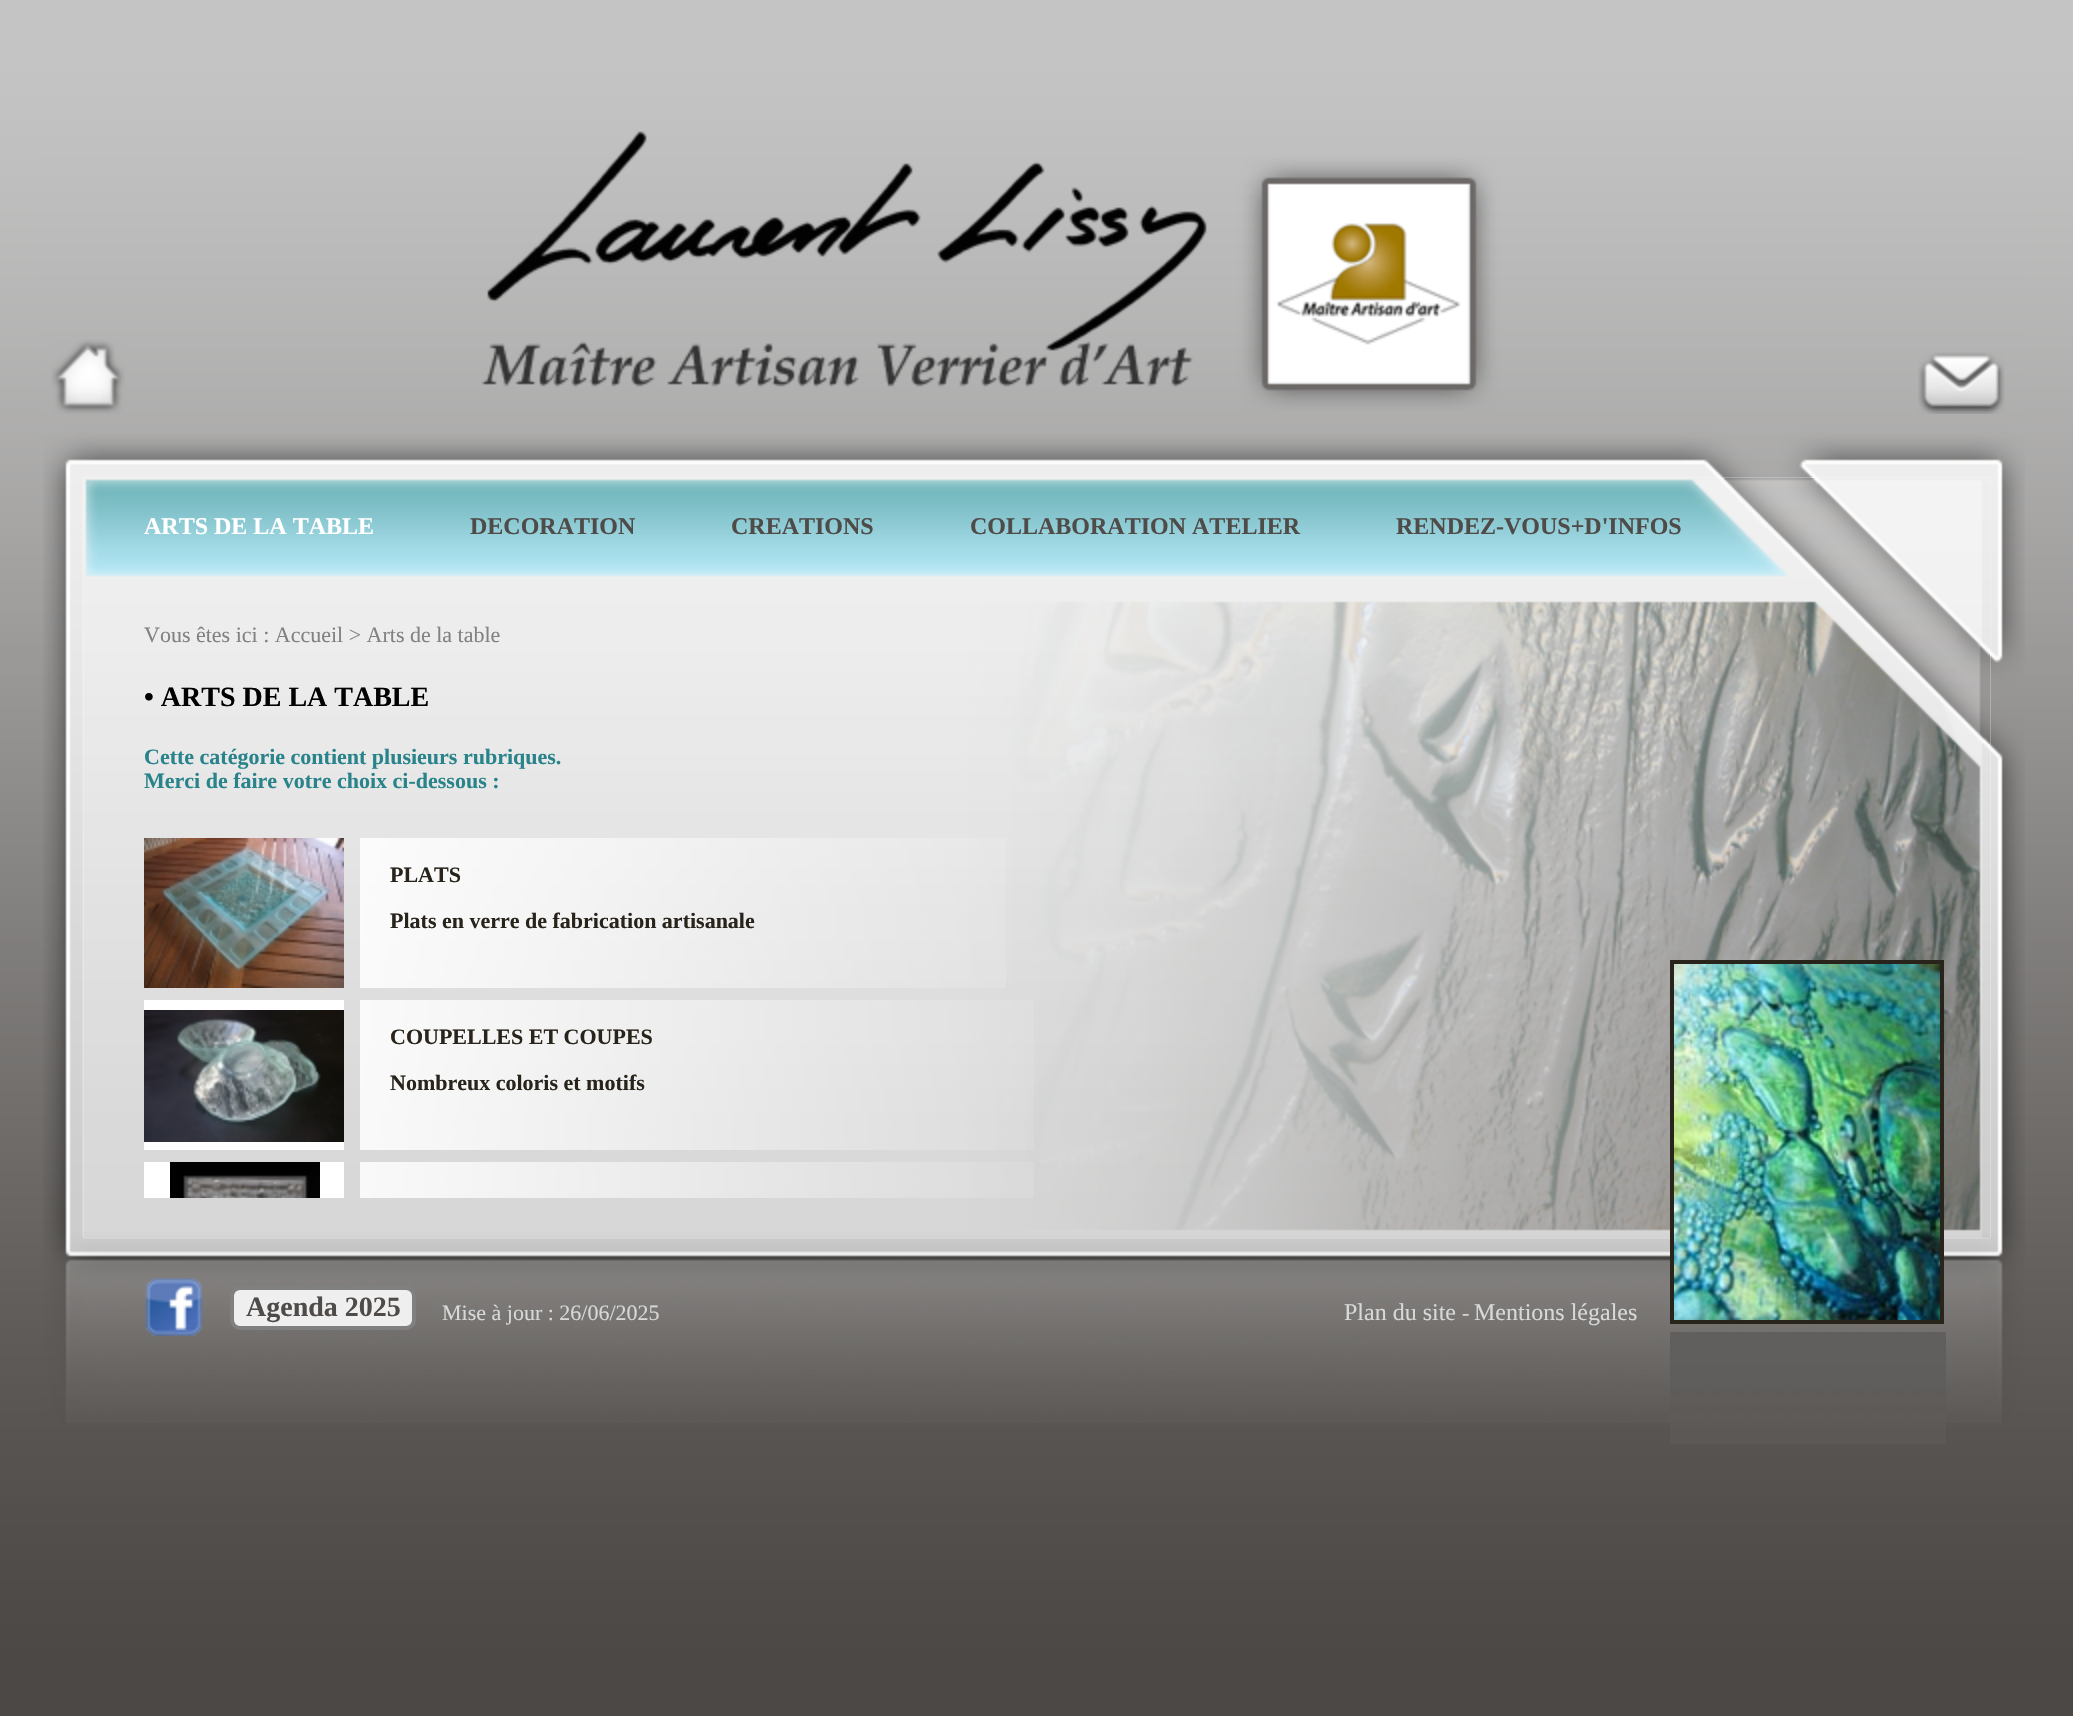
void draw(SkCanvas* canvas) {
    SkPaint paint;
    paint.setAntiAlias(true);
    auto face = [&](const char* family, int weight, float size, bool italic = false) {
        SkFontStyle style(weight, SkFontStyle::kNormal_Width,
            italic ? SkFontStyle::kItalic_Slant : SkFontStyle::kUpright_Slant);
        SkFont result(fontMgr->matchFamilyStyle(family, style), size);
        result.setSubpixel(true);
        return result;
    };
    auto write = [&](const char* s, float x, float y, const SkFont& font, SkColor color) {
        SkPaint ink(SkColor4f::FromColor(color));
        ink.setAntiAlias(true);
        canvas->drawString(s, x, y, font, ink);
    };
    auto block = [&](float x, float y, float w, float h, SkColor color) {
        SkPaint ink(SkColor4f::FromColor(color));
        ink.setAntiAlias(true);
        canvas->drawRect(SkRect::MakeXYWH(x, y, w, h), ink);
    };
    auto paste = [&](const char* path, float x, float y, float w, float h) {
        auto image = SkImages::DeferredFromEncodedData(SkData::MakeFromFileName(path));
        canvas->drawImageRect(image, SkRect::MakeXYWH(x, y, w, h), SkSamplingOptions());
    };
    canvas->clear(SK_ColorWHITE);
    paste("pic1.png", 0, 58, 2073, 1600);
    block(0, 0, 2073, 58, SkColorSetRGB(196, 196, 196));
    paste("pic2.png", 43, 131, 1982, 1292);
    paste("pic3.png", 84, 478, 1906, 760);
    paste("pic4.png", 51, 339, 74, 75);
    paste("pic5.png", 1918, 352, 87, 62);
    auto kFont1 = face("Liberation Serif", 700, 24);
    write("ARTS DE LA TABLE", 144, 534, kFont1, SK_ColorWHITE);
    write("DECORATION", 470, 534, kFont1, SkColorSetRGB(79, 75, 73));
    write("CREATIONS", 731, 534, kFont1, SkColorSetRGB(79, 75, 73));
    write("COLLABORATION ATELIER", 970, 534, kFont1, SkColorSetRGB(79, 75, 73));
    write("RENDEZ-VOUS+D'INFOS", 1396, 534, kFont1, SkColorSetRGB(79, 75, 73));
    auto kFont2 = face("Liberation Serif", 400, 22);
    write("Vous êtes ici : Accueil > Arts de la table", 144, 642, kFont2, SkColorSetRGB(130, 129, 128));
    auto kFont3 = face("Liberation Serif", 700, 28);
    write("• ARTS DE LA TABLE", 144, 706, kFont3, SK_ColorBLACK);
    auto kFont4 = face("Liberation Serif", 700, 22);
    write("Cette catégorie contient plusieurs rubriques.", 144, 764, kFont4, SkColorSetRGB(40, 131, 138));
    write("Merci de faire votre choix ci-dessous :", 144, 788, kFont4, SkColorSetRGB(40, 131, 138));
    paste("pic6.png", 144, 838, 200, 150);
    paste("pic7.png", 360, 838, 646, 150);
    write("PLATS", 390, 882, kFont4, SkColorSetRGB(40, 36, 27));
    write("Plats en verre de fabrication artisanale", 390, 928, kFont4, SkColorSetRGB(40, 36, 27));
    block(144, 1000, 200, 150, SK_ColorWHITE);
    paste("pic8.png", 144, 1010, 200, 132);
    paste("pic9.png", 360, 1000, 674, 150);
    write("COUPELLES ET COUPES", 390, 1044, kFont4, SkColorSetRGB(40, 36, 27));
    write("Nombreux coloris et motifs", 390, 1090, kFont4, SkColorSetRGB(40, 36, 27));
    block(144, 1162, 200, 36, SK_ColorWHITE);
    paste("pic10.png", 170, 1162, 150, 36);
    paste("pic11.png", 360, 1162, 674, 36);
    paint.setStyle(SkPaint::kStroke_Style);
    paint.setStrokeWidth(4);
    paint.setColor(SkColorSetRGB(40, 36, 27));
    canvas->drawRect(SkRect::MakeXYWH(1672, 962, 270, 360), paint);
    paste("pic12.png", 1674, 964, 266, 356);
    paste("pic13.png", 145, 1278, 58, 58);
    paint.setStyle(SkPaint::kFill_Style);
    paint.setColor(SkColorSetRGB(239, 239, 239));
    canvas->drawRoundRect(SkRect::MakeXYWH(232, 1288, 182, 40), 8, 8, paint);
    paint.setStyle(SkPaint::kStroke_Style);
    paint.setColor(SkColorSetRGB(128, 128, 128));
    canvas->drawRoundRect(SkRect::MakeXYWH(232, 1288, 182, 40), 8, 8, paint);
    write("Agenda 2025", 246, 1316, kFont3, SkColorSetRGB(79, 75, 73));
    write("Mise à jour : 26/06/2025", 442, 1320, kFont2, SkColorSetRGB(216, 216, 216));
    auto kFont5 = face("Liberation Serif", 400, 24);
    write("Plan du site", 1344, 1320, kFont5, SkColorSetRGB(216, 216, 216));
    write("-", 1462, 1320, kFont2, SkColorSetRGB(216, 216, 216));
    write("Mentions légales", 1474, 1320, kFont5, SkColorSetRGB(216, 216, 216));
    paste("pic14.png", 1670, 1332, 276, 112);
    block(0, 1658, 2073, 58, SkColorSetRGB(76, 72, 69));
}
